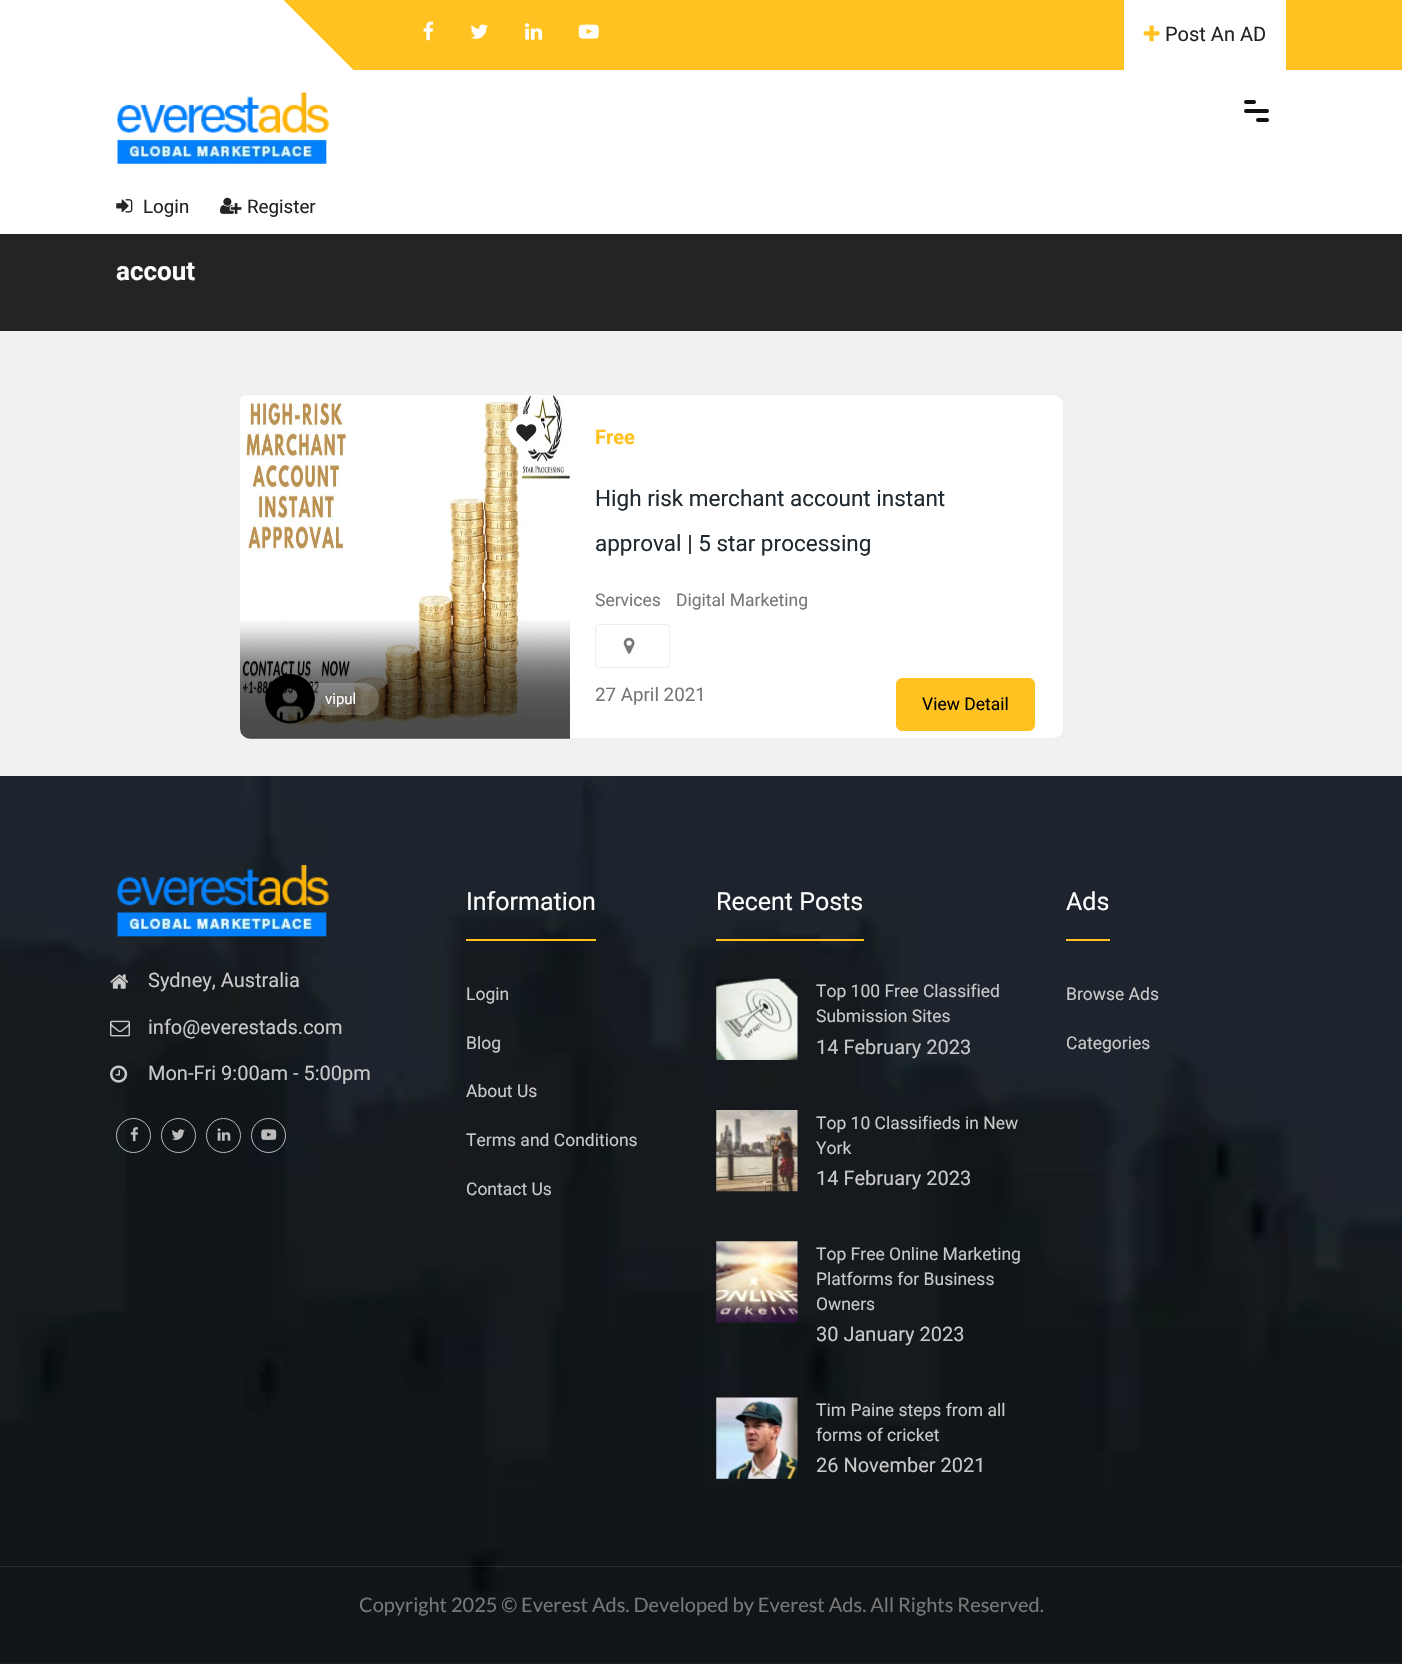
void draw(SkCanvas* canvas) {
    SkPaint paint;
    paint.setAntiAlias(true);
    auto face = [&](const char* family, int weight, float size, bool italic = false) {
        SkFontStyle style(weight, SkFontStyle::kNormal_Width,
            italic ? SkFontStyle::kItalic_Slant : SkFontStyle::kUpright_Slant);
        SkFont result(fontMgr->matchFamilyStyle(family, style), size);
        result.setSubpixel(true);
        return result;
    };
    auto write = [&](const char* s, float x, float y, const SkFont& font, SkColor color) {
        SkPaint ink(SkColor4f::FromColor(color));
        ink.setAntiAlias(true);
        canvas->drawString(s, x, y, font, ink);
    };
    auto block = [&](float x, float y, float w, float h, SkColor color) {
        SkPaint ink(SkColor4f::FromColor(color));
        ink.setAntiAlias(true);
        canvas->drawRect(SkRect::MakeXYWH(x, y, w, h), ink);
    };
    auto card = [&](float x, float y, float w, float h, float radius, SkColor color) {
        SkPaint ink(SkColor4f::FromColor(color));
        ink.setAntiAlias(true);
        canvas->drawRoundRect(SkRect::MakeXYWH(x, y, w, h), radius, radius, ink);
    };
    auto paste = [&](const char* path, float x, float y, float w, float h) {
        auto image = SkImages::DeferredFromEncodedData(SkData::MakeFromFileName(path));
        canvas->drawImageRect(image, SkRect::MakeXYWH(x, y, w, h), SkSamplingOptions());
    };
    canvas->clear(SK_ColorWHITE);
    {
        const SkColor colors[] = {SK_ColorWHITE, SkColorSetRGB(255, 194, 32)};
        const float stops[] = {0.24f, 0.24f};
        const SkPoint ends[] = {{333, 403}, {1069, -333}};
        paint.setShader(SkGradientShader::MakeLinear(ends, colors, stops, 2, SkTileMode::kClamp));
        paint.setAlpha(255);
    }
    canvas->drawRect(SkRect::MakeXYWH(284, 0, 1118, 70), paint);
    paste("pic1.png", 423, 21, 11, 20);
    paste("pic2.png", 470, 24, 18, 15);
    paste("pic3.png", 525, 23, 18, 17);
    paste("pic4.png", 578, 24, 21, 15);
    block(1124, 0, 162, 70, SK_ColorWHITE);
    paste("pic5.png", 1143, 25, 17, 17);
    auto kFont1 = face("Roboto", 400, 20);
    write("Post An AD", 1165, 41, kFont1, SkColorSetRGB(35, 35, 35));
    paste("pic6.png", 117, 92, 212, 72);
    card(1244, 100, 12, 4, 2, SkColorSetRGB(17, 17, 17));
    card(1244, 109, 25, 4, 2, SkColorSetRGB(17, 17, 17));
    card(1256, 118, 13, 4, 2, SkColorSetRGB(17, 17, 17));
    paste("pic7.png", 116, 199, 17, 14);
    auto kFont2 = face("Roboto", 400, 18.75f);
    write("Login", 143, 213, kFont2, SkColorSetRGB(35, 35, 35));
    paste("pic8.png", 220, 197, 22, 17);
    write("Register", 247, 213, kFont2, SkColorSetRGB(35, 35, 35));
    block(0, 234, 1402, 97, SkColorSetRGB(36, 36, 36));
    auto kFont3 = face("Roboto", 700, 26);
    write("accout", 116, 280, kFont3, SK_ColorWHITE);
    block(0, 331, 1402, 445, SkColorSetRGB(241, 241, 241));
    paint.setStyle(SkPaint::kStroke_Style);
    paint.setStrokeWidth(1);
    paint.setShader(nullptr);
    paint.setColor(SkColorSetRGB(238, 238, 238));
    canvas->drawRoundRect(SkRect::MakeXYWH(239.5f, 394.5f, 824, 344), 5.5f, 5.5f, paint);
    paste("pic9.png", 240, 395, 330, 342);
    paint.setStyle(SkPaint::kFill_Style);
    paint.setColor(SK_ColorWHITE);
    canvas->drawCircle(526.5f, 432.5f, 18.5f, paint);
    paste("pic10.png", 516, 424, 21, 18);
    paste("pic11.png", 240, 620, 330, 119);
    paint.setColor(SkColorSetARGB(51, 255, 255, 255));
    canvas->drawPath(SkPathBuilder().moveTo(303, 683).lineTo(363, 683).cubicTo(372, 683, 379, 690, 379, 699).cubicTo(379, 708, 372, 715, 363, 715).lineTo(303, 715).close().detach(), paint);
    paste("pic12.png", 265, 673, 50, 51);
    auto kFont4 = face("Roboto", 400, 15);
    write("vipul", 325, 704, kFont4, SK_ColorWHITE);
    paint.setColor(SK_ColorWHITE);
    canvas->drawPath(SkPathBuilder().moveTo(570, 395).lineTo(1053, 395).cubicTo(1058.5f, 395, 1063, 399.5f, 1063, 405).lineTo(1063, 728).cubicTo(1063, 733.5f, 1058.5f, 738, 1053, 738).lineTo(570, 738).close().detach(), paint);
    auto kFont5 = face("Roboto", 700, 20);
    write("Free", 595, 444, kFont5, SkColorSetRGB(255, 194, 32));
    auto kFont6 = face("Roboto", 400, 22.5f);
    write("High risk merchant account instant", 595, 506, kFont6, SkColorSetRGB(32, 41, 47));
    write("approval | 5 star processing", 595, 551, kFont6, SkColorSetRGB(32, 41, 47));
    auto kFont7 = face("Roboto", 400, 17.5f);
    write("Services", 595, 606, kFont7, SkColorSetRGB(119, 119, 119));
    write("Digital Marketing", 676, 606, kFont7, SkColorSetRGB(119, 119, 119));
    paint.setStyle(SkPaint::kStroke_Style);
    paint.setColor(SkColorSetRGB(237, 237, 237));
    canvas->drawRoundRect(SkRect::MakeXYWH(595.5f, 624.5f, 74, 43), 3.5f, 3.5f, paint);
    paste("pic13.png", 623, 637, 12, 17);
    write("27 April 2021", 595, 701, kFont2, SkColorSetRGB(119, 119, 119));
    paint.setStyle(SkPaint::kFill_Style);
    paint.setColor(SkColorSetRGB(255, 194, 32));
    canvas->drawRoundRect(SkRect::MakeXYWH(896.5f, 678.5f, 138, 52), 5.5f, 5.5f, paint);
    paint.setStyle(SkPaint::kStroke_Style);
    canvas->drawRoundRect(SkRect::MakeXYWH(896.5f, 678.5f, 138, 52), 5.5f, 5.5f, paint);
    write("View Detail", 922, 710, kFont7, SK_ColorBLACK);
    block(0, 776, 1402, 888, SkColorSetRGB(35, 35, 35));
    paste("pic14.png", 0, 776, 1402, 888);
    paste("pic15.png", 117, 864, 212, 73);
    paste("pic16.png", 110, 974, 19, 15);
    write("Sydney, Australia", 148, 987, kFont1, SkColorSetRGB(201, 201, 201));
    paste("pic17.png", 110, 1020, 20, 17);
    write("info@everestads.com", 148, 1034, kFont1, SkColorSetRGB(201, 201, 201));
    paste("pic18.png", 110, 1065, 18, 18);
    write("Mon-Fri 9:00am - 5:00pm", 148, 1080, kFont1, SkColorSetRGB(201, 201, 201));
    paint.setColor(SkColorSetRGB(188, 188, 188));
    canvas->drawCircle(133.5f, 1135.5f, 17, paint);
    paste("pic19.png", 130, 1127, 9, 15);
    canvas->drawCircle(178.5f, 1135.5f, 17, paint);
    paste("pic20.png", 171, 1129, 14, 11);
    canvas->drawCircle(223.5f, 1135.5f, 17, paint);
    paste("pic21.png", 217, 1128, 14, 13);
    canvas->drawCircle(268.5f, 1135.5f, 17, paint);
    paste("pic22.png", 261, 1129, 16, 11);
    block(466, 939, 130, 2, SkColorSetRGB(255, 194, 32));
    auto kFont8 = face("Roboto", 400, 25);
    write("Information", 466, 910, kFont8, SK_ColorWHITE);
    write("Login", 466, 1000, kFont7, SkColorSetRGB(201, 201, 201));
    write("Blog", 466, 1049, kFont7, SkColorSetRGB(201, 201, 201));
    write("About Us", 466, 1097, kFont7, SkColorSetRGB(201, 201, 201));
    write("Terms and Conditions", 466, 1146, kFont7, SkColorSetRGB(201, 201, 201));
    write("Contact Us", 466, 1195, kFont7, SkColorSetRGB(201, 201, 201));
    block(716, 939, 148, 2, SkColorSetRGB(255, 194, 32));
    write("Recent Posts", 716, 910, kFont8, SK_ColorWHITE);
    paste("pic23.png", 716, 978, 82, 82);
    write("Top 100 Free Classified", 816, 997, kFont7, SkColorSetRGB(201, 201, 201));
    write("Submission Sites", 816, 1022, kFont7, SkColorSetRGB(201, 201, 201));
    write("14 February 2023", 816, 1054, kFont1, SkColorSetRGB(201, 201, 201));
    paste("pic24.png", 716, 1110, 82, 82);
    write("Top 10 Classifieds in New", 816, 1129, kFont7, SkColorSetRGB(201, 201, 201));
    write("York", 816, 1154, kFont7, SkColorSetRGB(201, 201, 201));
    write("14 February 2023", 816, 1185, kFont1, SkColorSetRGB(201, 201, 201));
    paste("pic25.png", 716, 1241, 82, 82);
    write("Top Free Online Marketing", 816, 1260, kFont7, SkColorSetRGB(201, 201, 201));
    write("Platforms for Business", 816, 1285, kFont7, SkColorSetRGB(201, 201, 201));
    write("Owners", 816, 1310, kFont7, SkColorSetRGB(201, 201, 201));
    write("30 January 2023", 816, 1341, kFont1, SkColorSetRGB(201, 201, 201));
    paste("pic26.png", 716, 1397, 82, 82);
    write("Tim Paine steps from all", 816, 1416, kFont7, SkColorSetRGB(201, 201, 201));
    write("forms of cricket", 816, 1441, kFont7, SkColorSetRGB(201, 201, 201));
    write("26 November 2021", 816, 1472, kFont1, SkColorSetRGB(201, 201, 201));
    block(1066, 939, 44, 2, SkColorSetRGB(255, 194, 32));
    write("Ads", 1066, 910, kFont8, SK_ColorWHITE);
    write("Browse Ads", 1066, 1000, kFont7, SkColorSetRGB(201, 201, 201));
    write("Categories", 1066, 1049, kFont7, SkColorSetRGB(201, 201, 201));
    block(0, 1566, 1402, 1, SkColorSetARGB(26, 255, 255, 255));
    auto kFont9 = face("Lato", 400, 20);
    write("Copyright 2025 © Everest Ads. Developed by Everest Ads. All Rights Reserved.", 359, 1612, kFont9, SkColorSetRGB(119, 119, 119));
}
